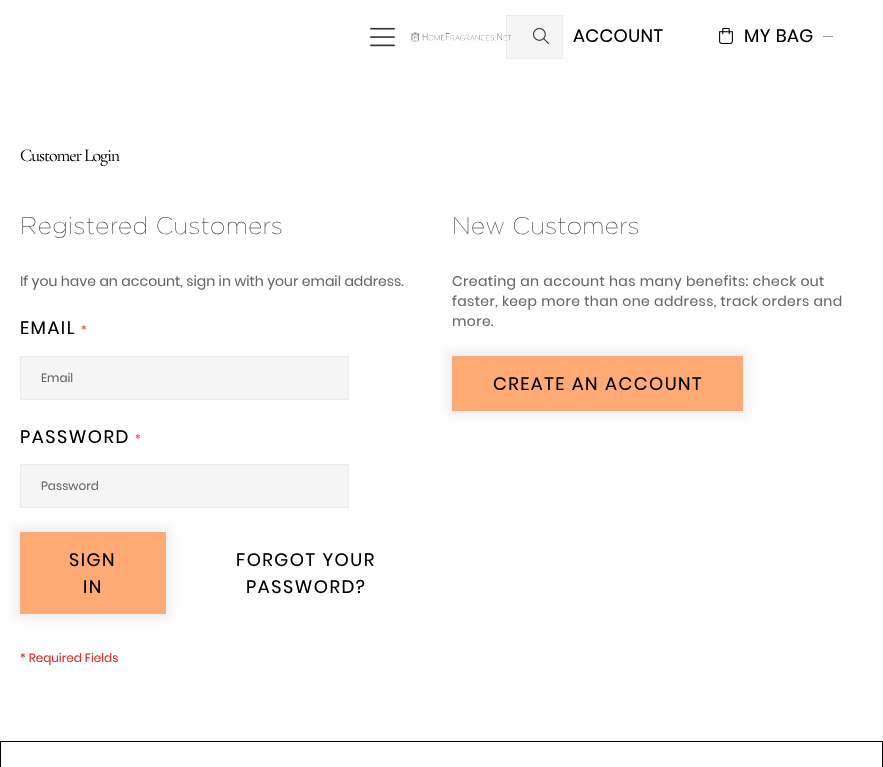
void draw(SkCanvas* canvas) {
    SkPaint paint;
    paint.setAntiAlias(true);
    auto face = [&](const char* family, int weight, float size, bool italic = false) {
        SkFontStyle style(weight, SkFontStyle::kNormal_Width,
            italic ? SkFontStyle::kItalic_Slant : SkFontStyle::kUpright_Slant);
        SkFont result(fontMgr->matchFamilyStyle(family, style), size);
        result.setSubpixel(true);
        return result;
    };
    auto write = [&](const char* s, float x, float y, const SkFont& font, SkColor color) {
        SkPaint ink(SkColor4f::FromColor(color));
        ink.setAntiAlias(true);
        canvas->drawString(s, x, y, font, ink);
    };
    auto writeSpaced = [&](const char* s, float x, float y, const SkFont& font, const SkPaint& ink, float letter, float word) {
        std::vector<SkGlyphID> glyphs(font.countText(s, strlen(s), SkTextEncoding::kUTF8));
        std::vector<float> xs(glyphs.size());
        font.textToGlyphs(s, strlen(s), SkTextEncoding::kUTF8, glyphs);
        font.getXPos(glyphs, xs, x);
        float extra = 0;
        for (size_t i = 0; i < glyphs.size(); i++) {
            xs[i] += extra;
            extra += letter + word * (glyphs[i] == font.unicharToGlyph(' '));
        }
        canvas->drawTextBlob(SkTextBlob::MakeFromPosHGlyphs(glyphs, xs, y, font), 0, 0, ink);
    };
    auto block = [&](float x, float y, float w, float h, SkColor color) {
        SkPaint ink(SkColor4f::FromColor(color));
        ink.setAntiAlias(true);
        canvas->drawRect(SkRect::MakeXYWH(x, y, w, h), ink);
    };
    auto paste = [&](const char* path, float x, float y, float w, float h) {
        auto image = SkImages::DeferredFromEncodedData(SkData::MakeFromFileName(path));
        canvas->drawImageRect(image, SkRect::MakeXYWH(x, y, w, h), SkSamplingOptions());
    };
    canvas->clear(SK_ColorWHITE);
    paste("pic1.png", 370, 27, 25, 20);
    paste("pic2.png", 411, 32, 100, 10);
    block(506, 15, 57, 44, SkColorSetARGB(10, 0, 0, 0));
    paint.setStyle(SkPaint::kStroke_Style);
    paint.setStrokeWidth(1);
    paint.setColor(SkColorSetARGB(10, 0, 0, 0));
    canvas->drawRect(SkRect::MakeXYWH(506.5f, 15.5f, 56, 43), paint);
    paste("pic3.png", 533, 28, 16, 16);
    auto kFont1 = face("Poppins", 400, 18);
    paint.setStyle(SkPaint::kFill_Style);
    paint.setColor(SK_ColorBLACK);
    writeSpaced("ACCOUNT", 573, 42, kFont1, paint, 0.4f, 0);
    paste("pic4.png", 719, 28, 14, 16);
    writeSpaced("MY BAG", 744, 42, kFont1, paint, 0.4f, 0);
    block(823, 36, 10, 1, SkColorSetRGB(153, 153, 153));
    auto kFont2 = face("Cormorant Garamond", 400, 18);
    writeSpaced("Customer Login", 20, 161, kFont2, paint, -1.1f, 0);
    auto kFont3 = face("Gotham", 100, 24);
    paint.setColor(SkColorSetRGB(51, 51, 51));
    writeSpaced("Registered Customers", 20, 234, kFont3, paint, 0.4f, 0);
    auto kFont4 = face("Poppins", 400, 14);
    write("If you have an account, sign in with your email address.", 20, 286, kFont4, SkColorSetRGB(102, 102, 102));
    paint.setColor(SK_ColorBLACK);
    writeSpaced("EMAIL", 20, 334, kFont1, paint, 1.5f, 0);
    auto kFont5 = face("Poppins", 400, 12);
    paint.setColor(SkColorSetRGB(244, 67, 54));
    writeSpaced("*", 81, 334, kFont5, paint, 1.5f, 0);
    paint.setColor(SkColorSetRGB(245, 245, 245));
    canvas->drawRect(SkRect::MakeXYWH(20.5f, 356.5f, 328, 43), paint);
    paint.setStyle(SkPaint::kStroke_Style);
    paint.setColor(SkColorSetRGB(235, 235, 235));
    canvas->drawRect(SkRect::MakeXYWH(20.5f, 356.5f, 328, 43), paint);
    write("Email", 41, 382, kFont5, SkColorSetRGB(102, 102, 102));
    paint.setStyle(SkPaint::kFill_Style);
    paint.setColor(SK_ColorBLACK);
    writeSpaced("PASSWORD", 20, 443, kFont1, paint, 1.5f, 0);
    paint.setColor(SkColorSetRGB(244, 67, 54));
    writeSpaced("*", 135, 443, kFont5, paint, 1.5f, 0);
    paint.setColor(SkColorSetRGB(245, 245, 245));
    canvas->drawRect(SkRect::MakeXYWH(20.5f, 464.5f, 328, 43), paint);
    paint.setStyle(SkPaint::kStroke_Style);
    paint.setColor(SkColorSetRGB(235, 235, 235));
    canvas->drawRect(SkRect::MakeXYWH(20.5f, 464.5f, 328, 43), paint);
    write("Password", 41, 490, kFont5, SkColorSetRGB(102, 102, 102));
    paint.setStyle(SkPaint::kFill_Style);
    paint.setColor(SkColorSetARGB(15, 0, 0, 0));
    paint.setMaskFilter(SkMaskFilter::MakeBlur(kNormal_SkBlurStyle, 5));
    canvas->drawRect(SkRect::MakeXYWH(15, 527, 156, 92), paint);
    paint.setMaskFilter(nullptr);
    block(20, 532, 146, 82, SkColorSetRGB(255, 169, 117));
    paint.setColor(SK_ColorBLACK);
    writeSpaced("SIGN", 69, 566, kFont1, paint, 1.5f, 0);
    writeSpaced("IN", 83, 593, kFont1, paint, 1.5f, 0);
    writeSpaced("FORGOT YOUR", 236, 566, kFont1, paint, 1.5f, 0);
    writeSpaced("PASSWORD?", 246, 593, kFont1, paint, 1.5f, 0);
    write("* Required Fields", 20, 662, kFont5, SkColorSetRGB(224, 43, 39));
    paint.setColor(SkColorSetRGB(51, 51, 51));
    writeSpaced("New Customers", 452, 234, kFont3, paint, 0.4f, 0);
    paint.setColor(SkColorSetRGB(102, 102, 102));
    writeSpaced("Creating an account has many benefits: check out", 452, 286, kFont4, paint, 0.4f, 0);
    writeSpaced("faster, keep more than one address, track orders and", 452, 306, kFont4, paint, 0.4f, 0);
    writeSpaced("more.", 452, 326, kFont4, paint, 0.4f, 0);
    paint.setColor(SkColorSetARGB(15, 0, 0, 0));
    paint.setMaskFilter(SkMaskFilter::MakeBlur(kNormal_SkBlurStyle, 5));
    canvas->drawRect(SkRect::MakeXYWH(447, 351, 301, 65), paint);
    paint.setMaskFilter(nullptr);
    block(452, 356, 291, 55, SkColorSetRGB(255, 169, 117));
    paint.setColor(SK_ColorBLACK);
    writeSpaced("CREATE AN ACCOUNT", 493, 390, kFont1, paint, 1.5f, 0);
    paint.setStyle(SkPaint::kStroke_Style);
    canvas->drawRect(SkRect::MakeXYWH(0.5f, 741.5f, 882, 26), paint);
}
